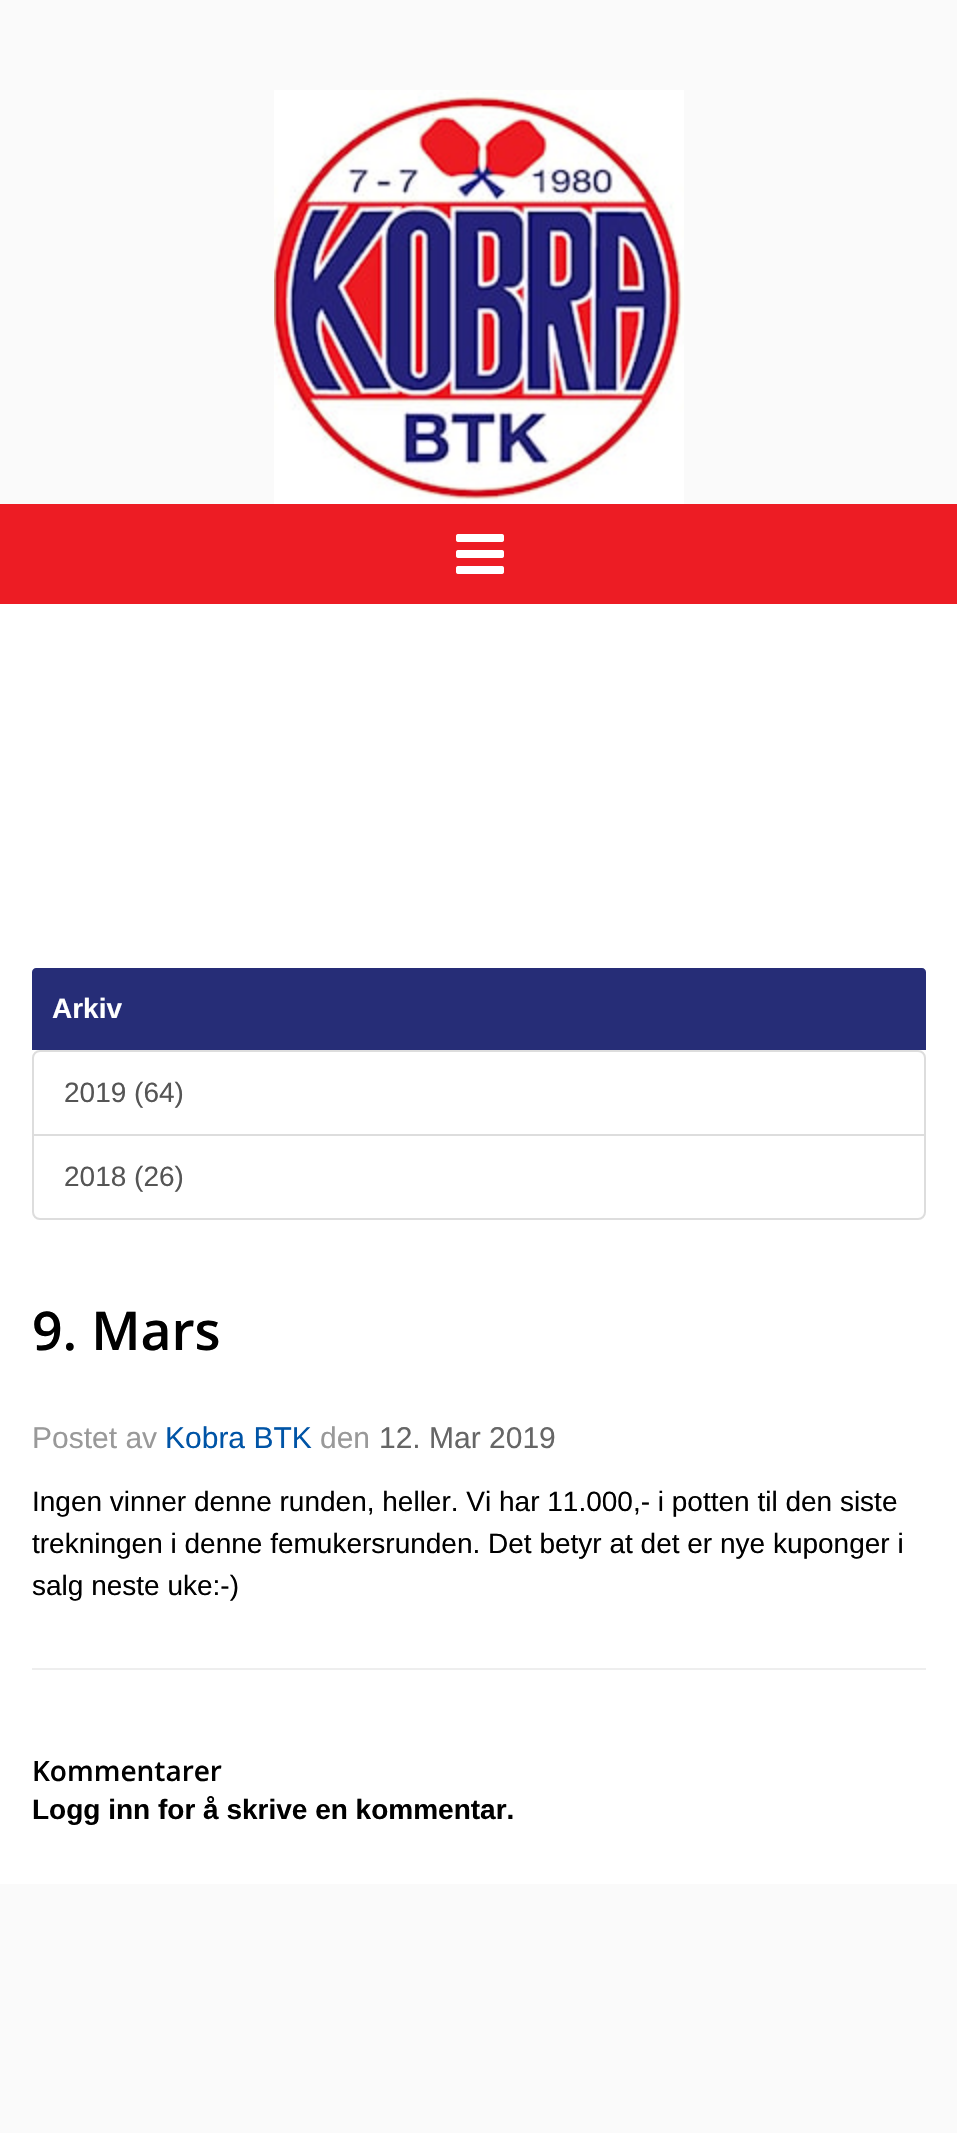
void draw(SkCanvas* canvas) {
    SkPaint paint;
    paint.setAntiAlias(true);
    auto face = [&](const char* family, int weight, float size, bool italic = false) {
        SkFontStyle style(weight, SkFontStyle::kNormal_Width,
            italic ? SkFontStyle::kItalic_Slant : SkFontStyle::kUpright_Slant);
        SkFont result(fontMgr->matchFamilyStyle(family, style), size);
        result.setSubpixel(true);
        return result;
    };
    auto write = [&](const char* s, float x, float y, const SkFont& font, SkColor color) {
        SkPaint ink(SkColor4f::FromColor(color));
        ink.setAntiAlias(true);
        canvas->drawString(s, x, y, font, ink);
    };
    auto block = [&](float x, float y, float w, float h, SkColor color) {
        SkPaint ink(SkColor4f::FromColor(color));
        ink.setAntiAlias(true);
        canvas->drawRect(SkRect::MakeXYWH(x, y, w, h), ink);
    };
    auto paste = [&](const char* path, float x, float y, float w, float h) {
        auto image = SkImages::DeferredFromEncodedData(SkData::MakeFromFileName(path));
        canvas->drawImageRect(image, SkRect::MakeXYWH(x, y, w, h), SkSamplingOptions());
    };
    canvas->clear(SkColorSetRGB(250, 250, 250));
    paste("pic1.png", 274, 90, 410, 414);
    block(0, 504, 957, 100, SkColorSetRGB(237, 28, 36));
    paste("pic2.png", 456, 534, 48, 40);
    block(0, 604, 957, 1280, SK_ColorWHITE);
    paint.setColor(SkColorSetRGB(38, 45, 119));
    canvas->drawPath(SkPathBuilder().moveTo(36, 968).lineTo(922, 968).cubicTo(924, 968, 926, 970, 926, 972).lineTo(926, 1050).lineTo(32, 1050).lineTo(32, 972).cubicTo(32, 970, 34, 968, 36, 968).close().detach(), paint);
    auto kFont1 = face("Liberation Sans", 700, 28);
    write("Arkiv", 52, 1018, kFont1, SK_ColorWHITE);
    paint.setStyle(SkPaint::kStroke_Style);
    paint.setStrokeWidth(2);
    paint.setColor(SkColorSetRGB(221, 221, 221));
    canvas->drawPath(SkPathBuilder().moveTo(40, 1051).lineTo(918, 1051).cubicTo(922, 1051, 925, 1054, 925, 1058).lineTo(925, 1135).lineTo(33, 1135).lineTo(33, 1058).cubicTo(33, 1054, 36, 1051, 40, 1051).close().detach(), paint);
    auto kFont2 = face("Liberation Sans", 400, 28);
    write("2019 (64)", 64, 1102, kFont2, SkColorSetRGB(85, 85, 85));
    paint.setStyle(SkPaint::kFill_Style);
    paint.setColor(SK_ColorWHITE);
    canvas->drawPath(SkPathBuilder().moveTo(33, 1135).lineTo(925, 1135).lineTo(925, 1212).cubicTo(925, 1216, 922, 1219, 918, 1219).lineTo(40, 1219).cubicTo(36, 1219, 33, 1216, 33, 1212).close().detach(), paint);
    paint.setStyle(SkPaint::kStroke_Style);
    paint.setColor(SkColorSetRGB(221, 221, 221));
    canvas->drawPath(SkPathBuilder().moveTo(33, 1135).lineTo(925, 1135).lineTo(925, 1212).cubicTo(925, 1216, 922, 1219, 918, 1219).lineTo(40, 1219).cubicTo(36, 1219, 33, 1216, 33, 1212).close().detach(), paint);
    write("2018 (26)", 64, 1186, kFont2, SkColorSetRGB(85, 85, 85));
    auto kFont3 = face("Open Sans", 600, 53.5f);
    write("9. Mars", 32, 1350, kFont3, SK_ColorBLACK);
    auto kFont4 = face("Liberation Sans", 400, 30);
    write("Postet av", 32, 1448, kFont4, SkColorSetRGB(153, 153, 153));
    write("Kobra BTK", 165, 1448, kFont4, SkColorSetRGB(0, 84, 166));
    write("den", 320, 1448, kFont4, SkColorSetRGB(153, 153, 153));
    write("12. Mar 2019", 379, 1448, kFont4, SkColorSetRGB(102, 102, 102));
    write("Ingen vinner denne runden, heller. Vi har 11.000,- i potten til den siste", 32, 1511, kFont2, SK_ColorBLACK);
    write("trekningen i denne femukersrunden. Det betyr at det er nye kuponger i", 32, 1553, kFont2, SK_ColorBLACK);
    write("salg neste uke:-)", 32, 1595, kFont2, SK_ColorBLACK);
    block(32, 1668, 894, 2, SkColorSetRGB(238, 238, 238));
    auto kFont5 = face("Open Sans", 600, 28);
    write("Kommentarer", 32, 1781, kFont5, SK_ColorBLACK);
    write("Logg inn for å skrive en kommentar.", 32, 1819, kFont1, SK_ColorBLACK);
}
